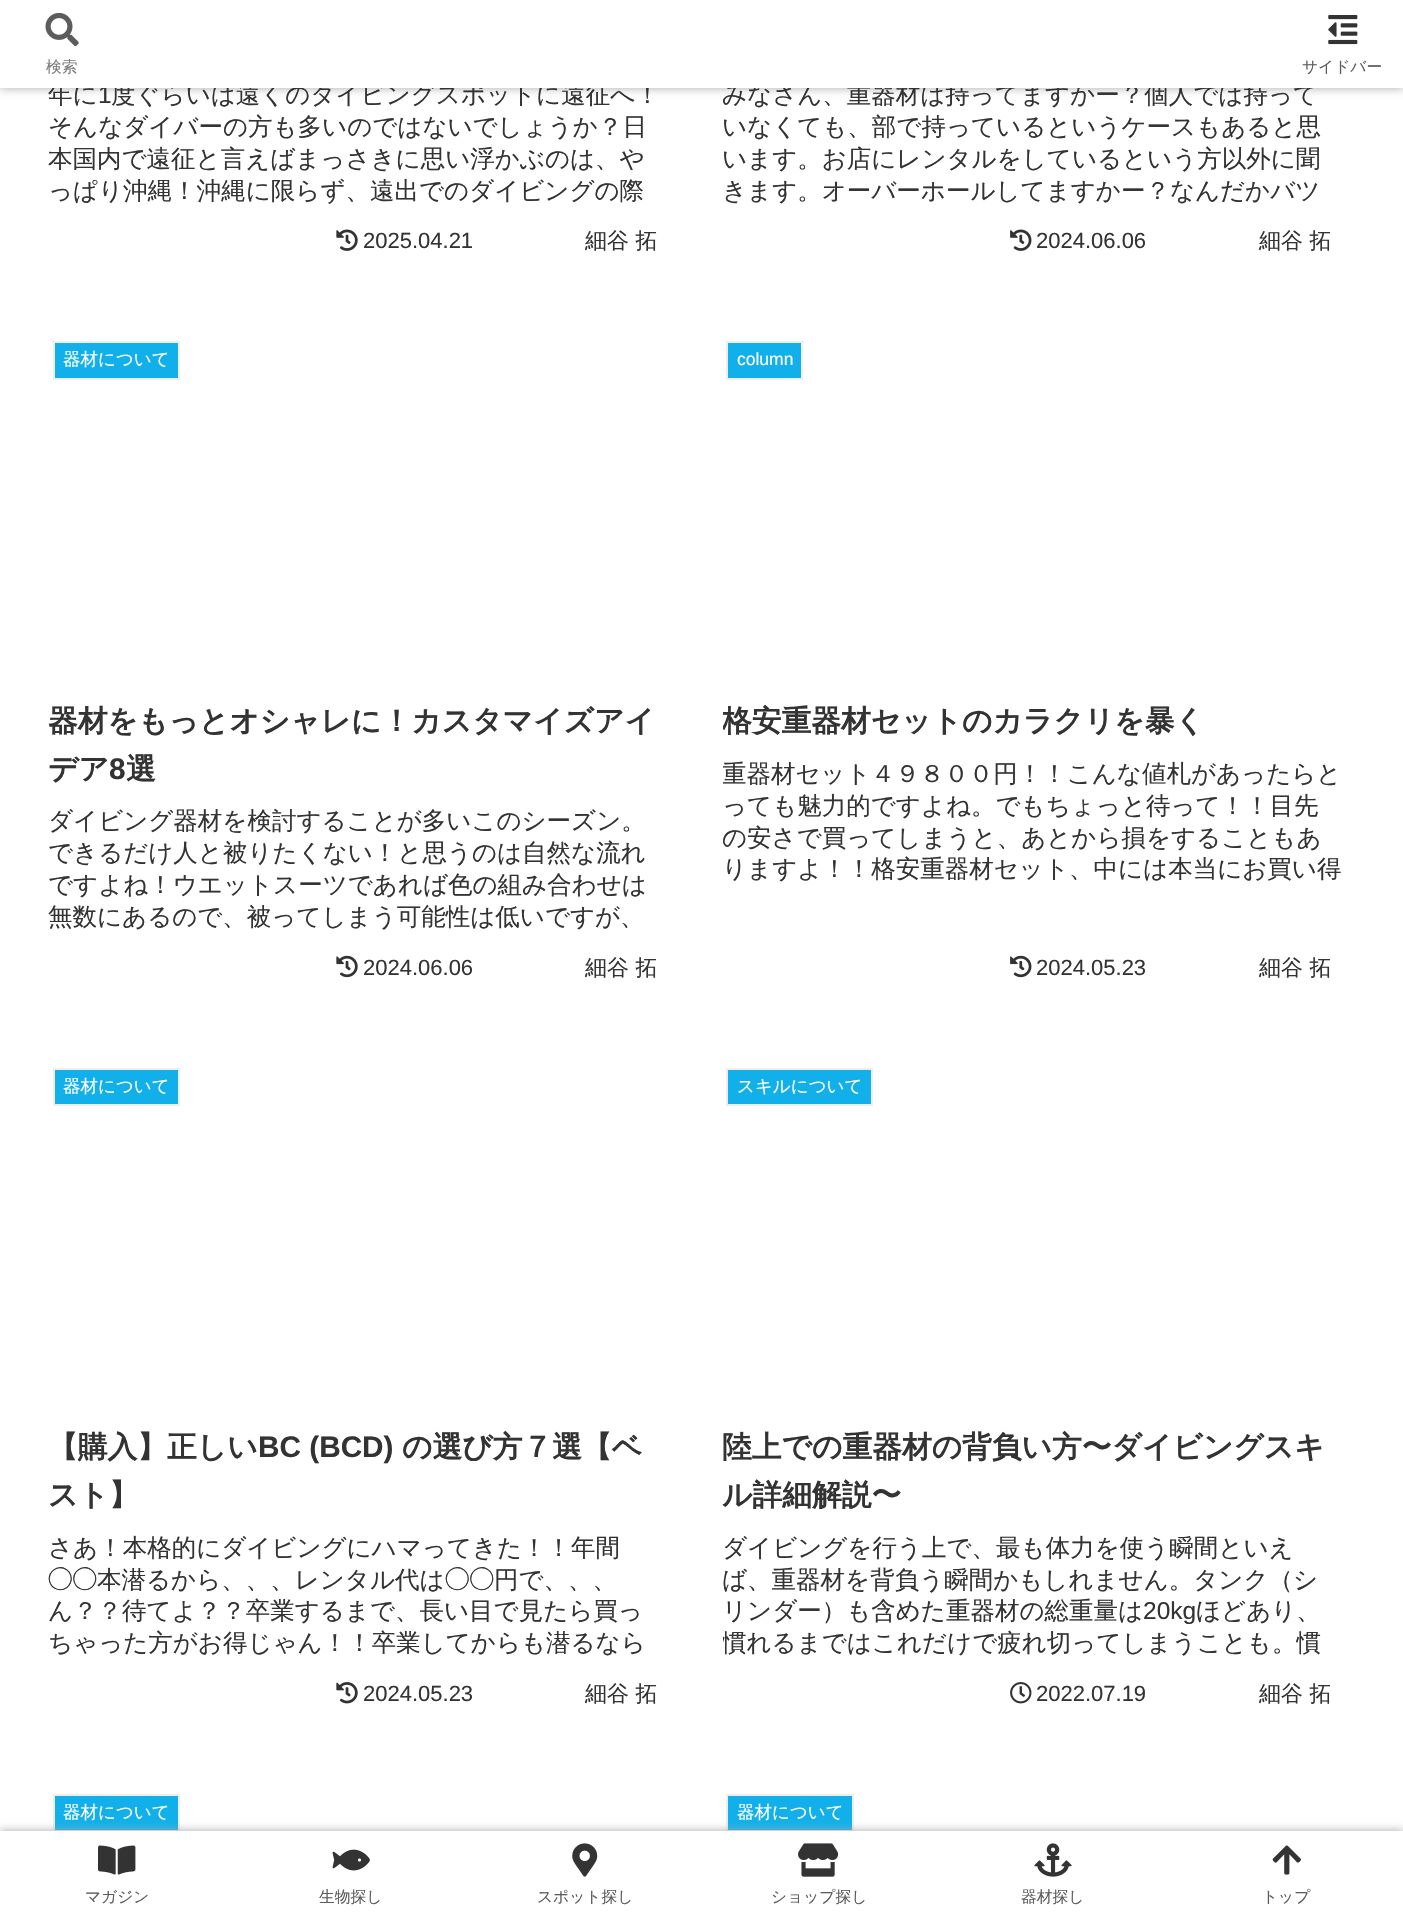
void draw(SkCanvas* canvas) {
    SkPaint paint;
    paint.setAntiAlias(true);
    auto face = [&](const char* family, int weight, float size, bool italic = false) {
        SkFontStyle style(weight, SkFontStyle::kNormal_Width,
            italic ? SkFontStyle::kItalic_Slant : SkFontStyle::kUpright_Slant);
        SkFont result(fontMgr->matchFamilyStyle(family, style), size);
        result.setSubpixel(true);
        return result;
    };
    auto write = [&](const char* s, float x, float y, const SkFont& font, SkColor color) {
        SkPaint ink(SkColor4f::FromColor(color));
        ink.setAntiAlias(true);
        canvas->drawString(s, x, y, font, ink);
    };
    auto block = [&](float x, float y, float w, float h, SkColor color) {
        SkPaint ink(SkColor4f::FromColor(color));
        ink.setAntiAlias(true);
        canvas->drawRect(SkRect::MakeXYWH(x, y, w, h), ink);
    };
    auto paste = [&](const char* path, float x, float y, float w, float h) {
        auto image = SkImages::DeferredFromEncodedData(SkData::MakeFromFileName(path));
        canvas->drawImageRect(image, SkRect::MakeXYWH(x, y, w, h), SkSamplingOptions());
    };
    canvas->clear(SK_ColorWHITE);
    paint.setColor(SkColorSetRGB(169, 169, 169));
    paint.setMaskFilter(SkMaskFilter::MakeBlur(kNormal_SkBlurStyle, 4.5f));
    canvas->drawRect(SkRect::MakeXYWH(0, 0, 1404, 88), paint);
    paint.setMaskFilter(nullptr);
    auto kFont1 = face("WenQuanYi Zen Hei", 500, 24.5f);
    write("年に", 48, 103, kFont1, SkColorSetRGB(51, 51, 51));
    auto kFont2 = face("Liberation Sans", 400, 24.5f);
    write("1", 98, 103, kFont2, SkColorSetRGB(51, 51, 51));
    write("度ぐらいは遠くのダイビングスポットに遠征へ！", 111, 103, kFont1, SkColorSetRGB(51, 51, 51));
    write("みなさん、重器材は持ってますかー？個人では持って", 722, 103, kFont1, SkColorSetRGB(51, 51, 51));
    block(0, 0, 1403, 88, SK_ColorWHITE);
    paste("pic1.png", 45, 12, 34, 35);
    auto kFont3 = face("WenQuanYi Zen Hei", 500, 15.75f);
    write("検索", 46, 72, kFont3, SkColorSetRGB(124, 124, 124));
    paste("pic2.png", 1328, 15, 30, 30);
    write("サイドバー", 1302, 72, kFont3, SkColorSetRGB(92, 92, 92));
    write("そんなダイバーの方も多いのではないでしょうか？日", 48, 135, kFont1, SkColorSetRGB(51, 51, 51));
    write("本国内で遠征と言えばまっさきに思い浮かぶのは、や", 48, 167, kFont1, SkColorSetRGB(51, 51, 51));
    write("っぱり沖縄！沖縄に限らず、遠出でのダイビングの際", 48, 199, kFont1, SkColorSetRGB(51, 51, 51));
    paste("pic3.png", 336, 229, 22, 22);
    auto kFont4 = face("Liberation Sans", 400, 22);
    write("2025.04.21", 363, 248, kFont4, SkColorSetRGB(51, 51, 51));
    auto kFont5 = face("WenQuanYi Zen Hei", 500, 22);
    write("細谷 拓", 585, 248, kFont5, SkColorSetRGB(51, 51, 51));
    write("いなくても、部で持っているというケースもあると思", 722, 135, kFont1, SkColorSetRGB(51, 51, 51));
    write("います。お店にレンタルをしているという方以外に聞", 722, 167, kFont1, SkColorSetRGB(51, 51, 51));
    write("きます。オーバーホールしてますかー？なんだかバツ", 722, 199, kFont1, SkColorSetRGB(51, 51, 51));
    paste("pic4.png", 1010, 229, 22, 22);
    write("2024.06.06", 1036, 248, kFont4, SkColorSetRGB(51, 51, 51));
    write("細谷 拓", 1259, 248, kFont5, SkColorSetRGB(51, 51, 51));
    paint.setColor(SkColorSetRGB(17, 176, 235));
    canvas->drawRect(SkRect::MakeXYWH(54, 342, 125, 37), paint);
    paint.setStyle(SkPaint::kStroke_Style);
    paint.setStrokeWidth(2);
    paint.setColor(SkColorSetRGB(238, 238, 238));
    canvas->drawRect(SkRect::MakeXYWH(54, 342, 125, 37), paint);
    auto kFont6 = face("WenQuanYi Zen Hei", 500, 17.5f);
    write("器材について", 63, 365, kFont6, SK_ColorWHITE);
    auto kFont7 = face("WenQuanYi Zen Hei", 700, 29.75f);
    write("器材をもっとオシャレに！カスタマイズアイ", 48, 731, kFont7, SkColorSetRGB(51, 51, 51));
    write("デア", 48, 779, kFont7, SkColorSetRGB(51, 51, 51));
    auto kFont8 = face("Liberation Sans", 700, 29.75f);
    write("8", 109, 779, kFont8, SkColorSetRGB(51, 51, 51));
    write("選", 126, 779, kFont7, SkColorSetRGB(51, 51, 51));
    write("ダイビング器材を検討することが多いこのシーズン。", 48, 829, kFont1, SkColorSetRGB(51, 51, 51));
    write("できるだけ人と被りたくない！と思うのは自然な流れ", 48, 861, kFont1, SkColorSetRGB(51, 51, 51));
    write("ですよね！ウエットスーツであれば色の組み合わせは", 48, 893, kFont1, SkColorSetRGB(51, 51, 51));
    write("無数にあるので、被ってしまう可能性は低いですが、", 48, 925, kFont1, SkColorSetRGB(51, 51, 51));
    paste("pic5.png", 336, 955, 22, 23);
    write("2024.06.06", 363, 975, kFont4, SkColorSetRGB(51, 51, 51));
    write("細谷 拓", 585, 975, kFont5, SkColorSetRGB(51, 51, 51));
    paint.setStyle(SkPaint::kFill_Style);
    paint.setColor(SkColorSetRGB(17, 176, 235));
    canvas->drawRect(SkRect::MakeXYWH(727, 342, 75, 37), paint);
    paint.setStyle(SkPaint::kStroke_Style);
    paint.setColor(SkColorSetRGB(238, 238, 238));
    canvas->drawRect(SkRect::MakeXYWH(727, 342, 75, 37), paint);
    auto kFont9 = face("Liberation Sans", 400, 17.5f);
    write("column", 737, 365, kFont9, SK_ColorWHITE);
    canvas->save();
    canvas->clipRect(SkRect::MakeXYWH(723, 698, 619, 48));
    write("格安重器材セットのカラクリを暴く", 722, 731, kFont7, SkColorSetRGB(51, 51, 51));
    canvas->restore();
    canvas->save();
    canvas->clipRect(SkRect::MakeXYWH(723, 758, 619, 128));
    write("重器材セット４９８００円！！こんな値札があったらと", 722, 782, kFont1, SkColorSetRGB(51, 51, 51));
    canvas->restore();
    write("っても魅力的ですよね。でもちょっと待って！！目先", 722, 814, kFont1, SkColorSetRGB(51, 51, 51));
    write("の安さで買ってしまうと、あとから損をすることもあ", 722, 846, kFont1, SkColorSetRGB(51, 51, 51));
    write("りますよ！！格安重器材セット、中には本当にお買い得", 722, 877, kFont1, SkColorSetRGB(51, 51, 51));
    paste("pic6.png", 1010, 955, 22, 23);
    write("2024.05.23", 1036, 975, kFont4, SkColorSetRGB(51, 51, 51));
    write("細谷 拓", 1259, 975, kFont5, SkColorSetRGB(51, 51, 51));
    paint.setStyle(SkPaint::kFill_Style);
    paint.setColor(SkColorSetRGB(17, 176, 235));
    canvas->drawRect(SkRect::MakeXYWH(54, 1069, 125, 36), paint);
    paint.setStyle(SkPaint::kStroke_Style);
    paint.setColor(SkColorSetRGB(238, 238, 238));
    canvas->drawRect(SkRect::MakeXYWH(54, 1069, 125, 36), paint);
    write("器材について", 63, 1092, kFont6, SK_ColorWHITE);
    write("【購入】正しい", 48, 1457, kFont7, SkColorSetRGB(51, 51, 51));
    write("BC (BCD)", 258, 1457, kFont8, SkColorSetRGB(51, 51, 51));
    write("の選び方７選【ベ", 402, 1457, kFont7, SkColorSetRGB(51, 51, 51));
    write("スト】", 48, 1505, kFont7, SkColorSetRGB(51, 51, 51));
    write("さあ！本格的にダイビングにハマってきた！！年間", 48, 1556, kFont1, SkColorSetRGB(51, 51, 51));
    auto kFont10 = face("IPAPGothic", 400, 24.5f);
    write("◯◯", 48, 1588, kFont10, SkColorSetRGB(51, 51, 51));
    write("本潜るから、、、レンタル代は", 97, 1588, kFont1, SkColorSetRGB(51, 51, 51));
    write("◯◯", 445, 1588, kFont10, SkColorSetRGB(51, 51, 51));
    write("円で、、、", 494, 1588, kFont1, SkColorSetRGB(51, 51, 51));
    write("ん？？待てよ？？卒業するまで、長い目で見たら買っ", 48, 1619, kFont1, SkColorSetRGB(51, 51, 51));
    write("ちゃった方がお得じゃん！！卒業してからも潜るなら", 48, 1651, kFont1, SkColorSetRGB(51, 51, 51));
    paste("pic7.png", 336, 1682, 22, 22);
    write("2024.05.23", 363, 1701, kFont4, SkColorSetRGB(51, 51, 51));
    write("細谷 拓", 585, 1701, kFont5, SkColorSetRGB(51, 51, 51));
    paint.setStyle(SkPaint::kFill_Style);
    paint.setColor(SkColorSetRGB(17, 176, 235));
    canvas->drawRect(SkRect::MakeXYWH(727, 1069, 145, 36), paint);
    paint.setStyle(SkPaint::kStroke_Style);
    paint.setColor(SkColorSetRGB(238, 238, 238));
    canvas->drawRect(SkRect::MakeXYWH(727, 1069, 145, 36), paint);
    write("スキルについて", 737, 1092, kFont6, SK_ColorWHITE);
    write("陸上での重器材の背負い方〜ダイビングスキ", 722, 1457, kFont7, SkColorSetRGB(51, 51, 51));
    write("ル詳細解説〜", 722, 1505, kFont7, SkColorSetRGB(51, 51, 51));
    write("ダイビングを行う上で、最も体力を使う瞬間といえ", 722, 1556, kFont1, SkColorSetRGB(51, 51, 51));
    write("ば、重器材を背負う瞬間かもしれません。タンク（シ", 722, 1588, kFont1, SkColorSetRGB(51, 51, 51));
    write("リンダー）も含めた重器材の総重量は", 722, 1619, kFont1, SkColorSetRGB(51, 51, 51));
    write("20kg", 1143, 1619, kFont2, SkColorSetRGB(51, 51, 51));
    write("ほどあり、", 1196, 1619, kFont1, SkColorSetRGB(51, 51, 51));
    canvas->save();
    canvas->clipRect(SkRect::MakeXYWH(723, 1531, 619, 128));
    write("慣れるまではこれだけで疲れ切ってしまうことも。慣", 722, 1651, kFont1, SkColorSetRGB(51, 51, 51));
    canvas->restore();
    paste("pic8.png", 1010, 1682, 22, 22);
    write("2022.07.19", 1036, 1701, kFont4, SkColorSetRGB(51, 51, 51));
    write("細谷 拓", 1259, 1701, kFont5, SkColorSetRGB(51, 51, 51));
    paint.setStyle(SkPaint::kFill_Style);
    paint.setColor(SkColorSetRGB(17, 176, 235));
    canvas->drawRect(SkRect::MakeXYWH(54, 1795, 125, 36), paint);
    paint.setStyle(SkPaint::kStroke_Style);
    paint.setColor(SkColorSetRGB(238, 238, 238));
    canvas->drawRect(SkRect::MakeXYWH(54, 1795, 125, 36), paint);
    write("器材について", 63, 1818, kFont6, SK_ColorWHITE);
    paint.setStyle(SkPaint::kFill_Style);
    paint.setColor(SkColorSetRGB(17, 176, 235));
    canvas->drawRect(SkRect::MakeXYWH(727, 1795, 126, 36), paint);
    paint.setStyle(SkPaint::kStroke_Style);
    paint.setColor(SkColorSetRGB(238, 238, 238));
    canvas->drawRect(SkRect::MakeXYWH(727, 1795, 126, 36), paint);
    write("器材について", 737, 1818, kFont6, SK_ColorWHITE);
    paint.setStyle(SkPaint::kFill_Style);
    paint.setColor(SkColorSetRGB(169, 169, 169));
    paint.setMaskFilter(SkMaskFilter::MakeBlur(kNormal_SkBlurStyle, 4.5f));
    canvas->drawRect(SkRect::MakeXYWH(0, 1831, 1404, 87), paint);
    paint.setMaskFilter(nullptr);
    block(0, 1831, 1403, 87, SK_ColorWHITE);
    paste("pic9.png", 98, 1845, 38, 30);
    write("マガジン", 85, 1902, kFont3, SkColorSetRGB(92, 92, 92));
    paste("pic10.png", 332, 1849, 38, 22);
    write("生物探し", 319, 1902, kFont3, SkColorSetRGB(92, 92, 92));
    paste("pic11.png", 572, 1843, 26, 34);
    write("スポット探し", 537, 1902, kFont3, SkColorSetRGB(92, 92, 92));
    paste("pic12.png", 798, 1843, 41, 34);
    write("ショップ探し", 771, 1902, kFont3, SkColorSetRGB(92, 92, 92));
    paste("pic13.png", 1034, 1843, 38, 34);
    write("器材探し", 1021, 1902, kFont3, SkColorSetRGB(92, 92, 92));
    paste("pic14.png", 1272, 1845, 29, 30);
    write("トップ", 1262, 1902, kFont3, SkColorSetRGB(92, 92, 92));
}
